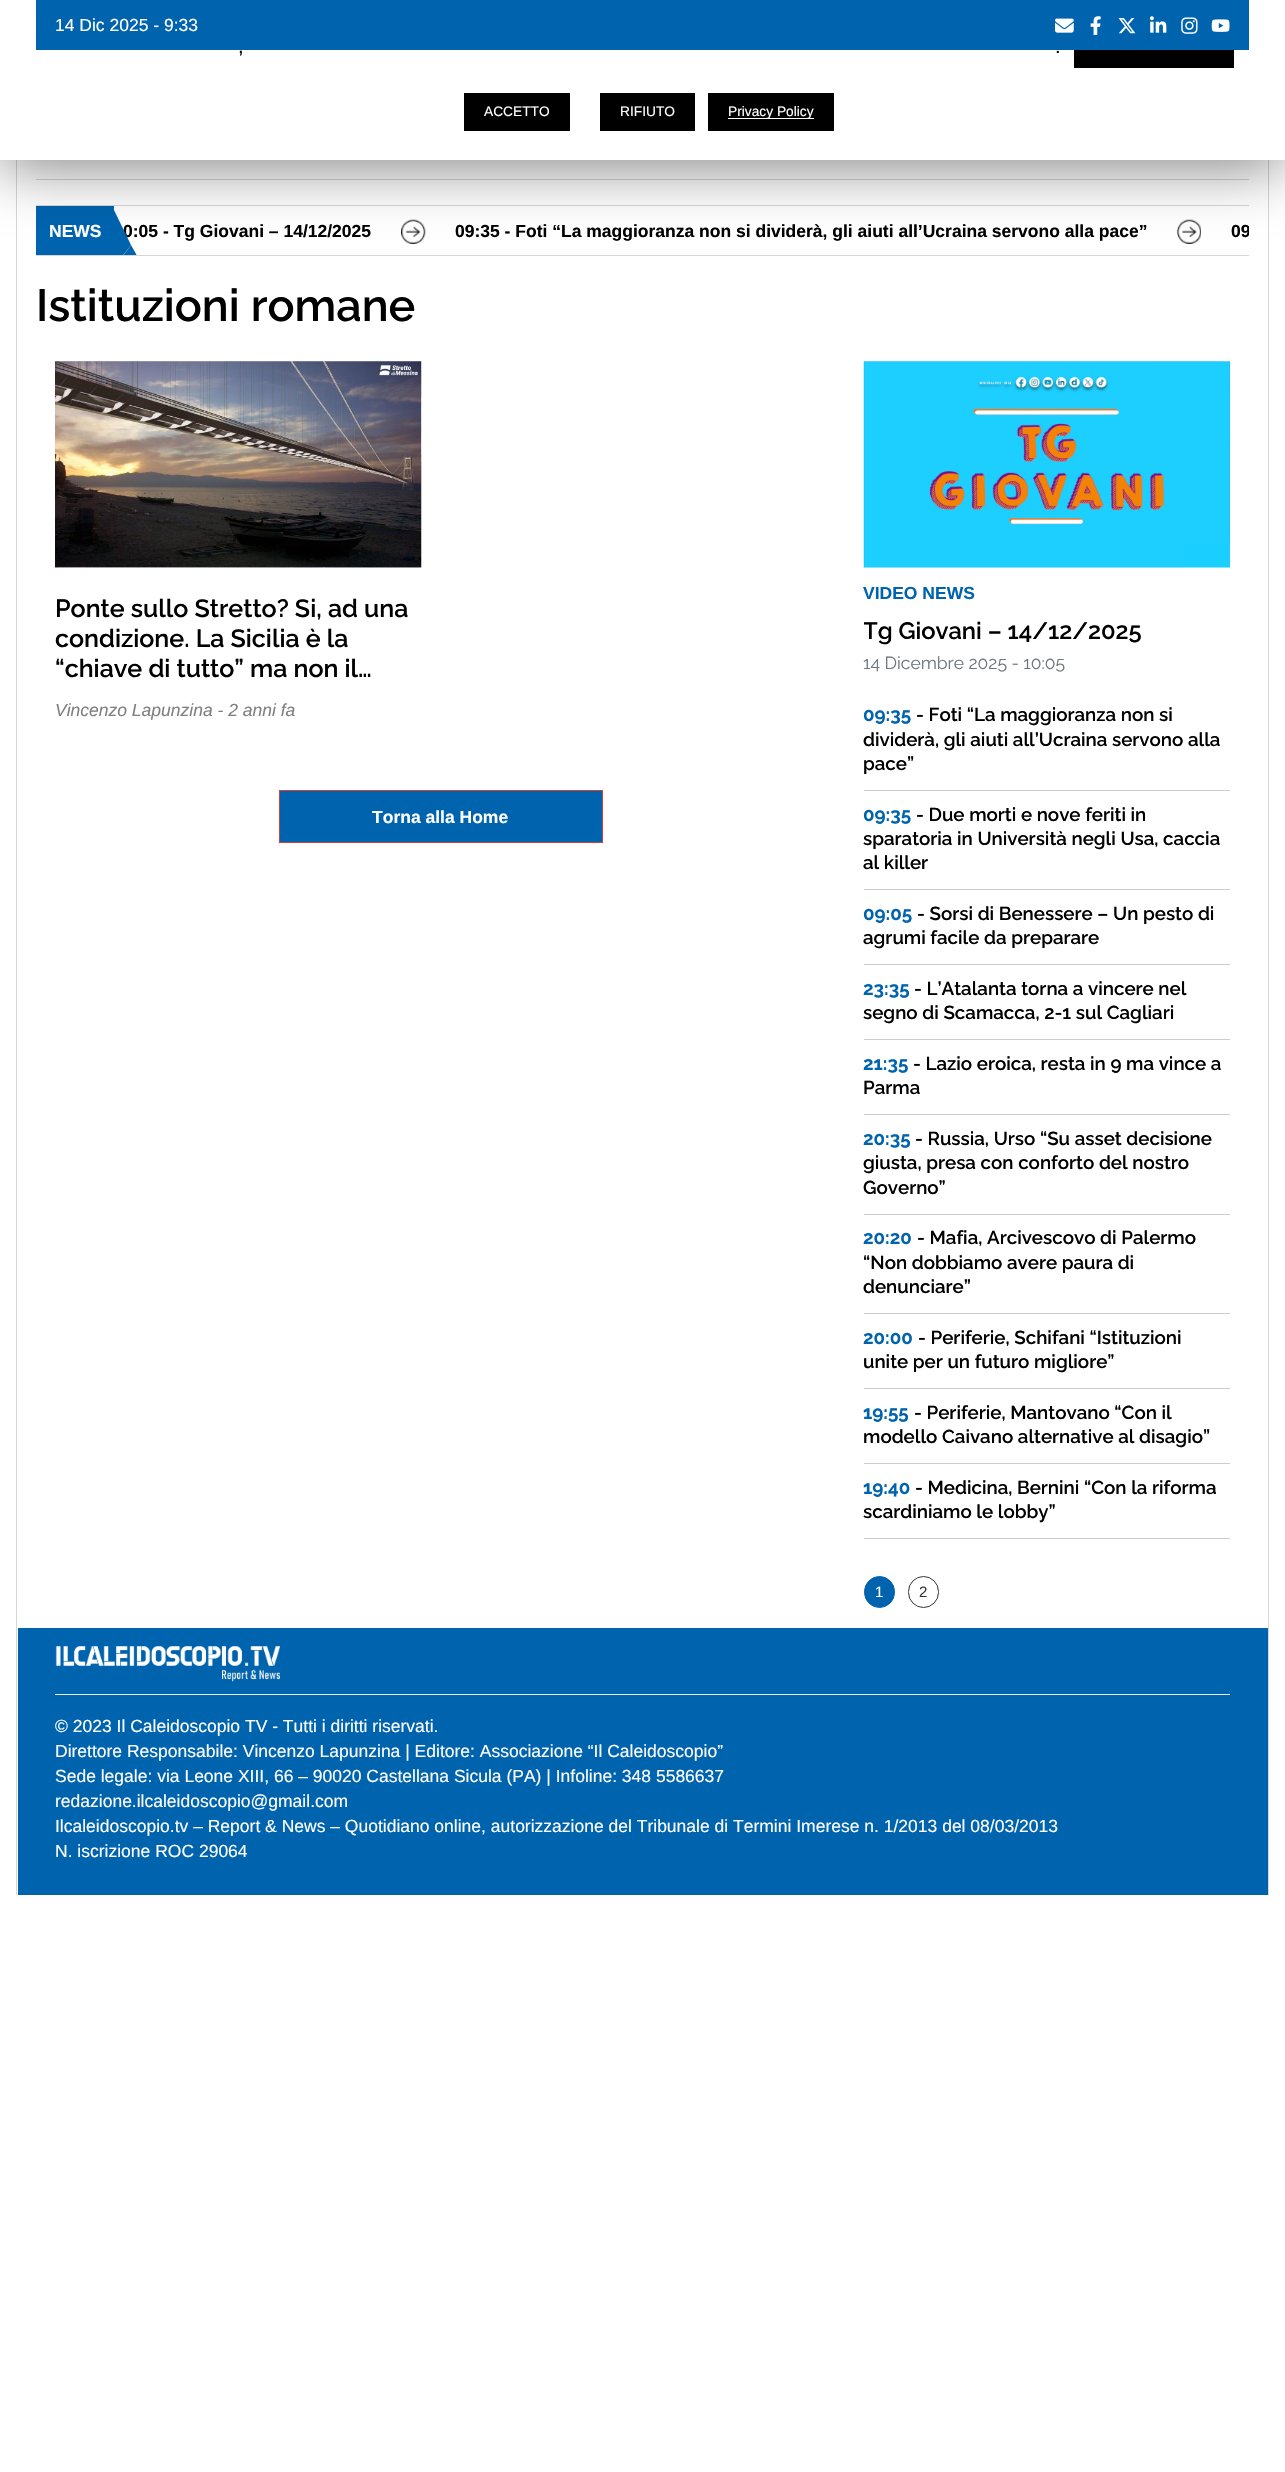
void draw(SkCanvas* canvas) {
    SkPaint paint;
    paint.setAntiAlias(true);
    auto face = [&](const char* family, int weight, float size, bool italic = false) {
        SkFontStyle style(weight, SkFontStyle::kNormal_Width,
            italic ? SkFontStyle::kItalic_Slant : SkFontStyle::kUpright_Slant);
        SkFont result(fontMgr->matchFamilyStyle(family, style), size);
        result.setSubpixel(true);
        return result;
    };
    auto write = [&](const char* s, float x, float y, const SkFont& font, SkColor color) {
        SkPaint ink(SkColor4f::FromColor(color));
        ink.setAntiAlias(true);
        canvas->drawString(s, x, y, font, ink);
    };
    auto block = [&](float x, float y, float w, float h, SkColor color) {
        SkPaint ink(SkColor4f::FromColor(color));
        ink.setAntiAlias(true);
        canvas->drawRect(SkRect::MakeXYWH(x, y, w, h), ink);
    };
    auto paste = [&](const char* path, float x, float y, float w, float h) {
        auto image = SkImages::DeferredFromEncodedData(SkData::MakeFromFileName(path));
        canvas->drawImageRect(image, SkRect::MakeXYWH(x, y, w, h), SkSamplingOptions());
    };
    canvas->clear(SK_ColorWHITE);
    block(1268, 160, 1, 1735, SkColorSetRGB(214, 214, 214));
    block(16, 160, 1, 1735, SkColorSetRGB(214, 214, 214));
    block(36, 179, 1213, 1, SkColorSetRGB(214, 214, 214));
    block(36, 205, 1213, 1, SkColorSetRGB(214, 214, 214));
    block(36, 255, 1213, 1, SkColorSetRGB(214, 214, 214));
    block(36, 206, 78, 49, SkColorSetRGB(0, 99, 174));
    canvas->save();
    canvas->clipRect(SkRect::MakeXYWH(36, 206, 1213, 49));
    paint.setColor(SkColorSetRGB(0, 99, 174));
    canvas->drawPath(SkPathBuilder().moveTo(145, 270).lineTo(112.5f, 270).lineTo(131, 245).close().detach(), paint);
    canvas->restore();
    auto kFont1 = face("Liberation Sans", 700, 17.5f);
    write("0:05 - Tg Giovani – 14/12/2025", 123, 237, kFont1, SK_ColorBLACK);
    canvas->save();
    canvas->clipRect(SkRect::MakeXYWH(36, 206, 1213, 49));
    canvas->drawPath(SkPathBuilder().moveTo(112, 270).lineTo(112, 206).lineTo(131, 245).close().detach(), paint);
    canvas->restore();
    paste("pic7.png", 401, 219, 25, 25);
    paste("pic8.png", 1177, 219, 24, 25);
    paint.setColor(SkColorSetARGB(128, 0, 0, 0));
    paint.setMaskFilter(SkMaskFilter::MakeBlur(kNormal_SkBlurStyle, 31));
    canvas->drawRect(SkRect::MakeXYWH(0, 6, 1285, 160), paint);
    paint.setMaskFilter(nullptr);
    block(0, 0, 1285, 160, SK_ColorWHITE);
    block(36, 0, 1213, 50, SkColorSetRGB(0, 99, 174));
    auto kFont2 = face("Liberation Sans", 400, 17.5f);
    write("14 Dic 2025 - 9:33", 55, 31, kFont2, SK_ColorWHITE);
    paste("pic1.png", 1055, 18, 19, 15);
    paste("pic2.png", 1090, 16, 11, 19);
    paste("pic3.png", 1118, 18, 18, 16);
    paste("pic4.png", 1149, 16, 18, 17);
    paste("pic5.png", 1181, 17, 17, 17);
    paste("pic6.png", 1211, 19, 19, 13);
    auto kFont3 = face("Liberation Sans", 400, 20);
    write(",", 238, 53, kFont3, SK_ColorBLACK);
    write(".", 1055, 53, kFont3, SK_ColorBLACK);
    block(1074, 50, 160, 18, SK_ColorBLACK);
    block(464, 93, 106, 38, SK_ColorBLACK);
    auto kFont4 = face("Liberation Sans", 400, 13.75f);
    write("ACCETTO", 484, 116, kFont4, SK_ColorWHITE);
    block(600, 93, 95, 38, SK_ColorBLACK);
    write("RIFIUTO", 620, 116, kFont4, SK_ColorWHITE);
    block(708, 93, 126, 38, SK_ColorBLACK);
    block(728, 118, 86, 1, SK_ColorWHITE);
    write("Privacy Policy", 728, 116, kFont4, SK_ColorWHITE);
    write("NEWS", 49, 237, kFont1, SK_ColorWHITE);
    write("09:35 - Foti “La maggioranza non si dividerà, gli aiuti all’Ucraina servono alla pace”", 455, 237, kFont1, SK_ColorBLACK);
    canvas->save();
    canvas->clipRect(SkRect::MakeXYWH(114, 206, 1135, 49));
    write("09", 1231, 237, kFont1, SK_ColorBLACK);
    canvas->restore();
    auto kFont5 = face("Raleway", 600, 45);
    write("Istituzioni romane", 36, 321, kFont5, SK_ColorBLACK);
    paste("pic9.png", 55, 361, 367, 207);
    auto kFont6 = face("Raleway", 600, 25);
    write("Ponte sullo Stretto? Si, ad una", 55, 617, kFont6, SK_ColorBLACK);
    write("condizione. La Sicilia è la", 55, 647, kFont6, SK_ColorBLACK);
    write("“chiave di tutto” ma non il…", 55, 677, kFont6, SK_ColorBLACK);
    auto kFont7 = face("Liberation Sans", 400, 17.5f, true);
    write("Vincenzo Lapunzina - 2 anni fa", 55, 716, kFont7, SkColorSetRGB(128, 128, 128));
    paint.setColor(SkColorSetRGB(0, 99, 174));
    canvas->drawRect(SkRect::MakeXYWH(279.5f, 790.5f, 323, 52), paint);
    paint.setStyle(SkPaint::kStroke_Style);
    paint.setStrokeWidth(1);
    paint.setColor(SkColorSetRGB(212, 63, 58));
    canvas->drawRect(SkRect::MakeXYWH(279.5f, 790.5f, 323, 52), paint);
    write("Torna alla Home", 372, 823, kFont1, SK_ColorWHITE);
    paste("pic10.png", 863, 361, 367, 207);
    write("VIDEO NEWS", 863, 599, kFont1, SkColorSetRGB(0, 99, 174));
    canvas->save();
    canvas->clipRect(SkRect::MakeXYWH(864, 616, 366, 29));
    auto kFont8 = face("Raleway", 600, 23.75f);
    write("Tg Giovani – 14/12/2025", 863, 639, kFont8, SK_ColorBLACK);
    canvas->restore();
    auto kFont9 = face("Raleway", 400, 17.5f);
    write("14 Dicembre 2025 - 10:05", 863, 669, kFont9, SkColorSetRGB(110, 118, 126));
    block(864, 790, 366, 1, SkColorSetRGB(204, 204, 204));
    auto kFont10 = face("Raleway", 700, 18.75f);
    write("09:35", 863, 721, kFont10, SkColorSetRGB(0, 99, 174));
    auto kFont11 = face("Raleway", 600, 18.75f);
    write("- Foti “La maggioranza non si", 916, 721, kFont11, SK_ColorBLACK);
    write("dividerà, gli aiuti all’Ucraina servono alla", 863, 746, kFont11, SK_ColorBLACK);
    write("pace”", 863, 770, kFont11, SK_ColorBLACK);
    block(864, 889, 366, 1, SkColorSetRGB(204, 204, 204));
    write("09:35", 863, 821, kFont10, SkColorSetRGB(0, 99, 174));
    write("- Due morti e nove feriti in", 916, 821, kFont11, SK_ColorBLACK);
    write("sparatoria in Università negli Usa, caccia", 863, 845, kFont11, SK_ColorBLACK);
    write("al killer", 863, 869, kFont11, SK_ColorBLACK);
    block(864, 964, 366, 1, SkColorSetRGB(204, 204, 204));
    write("09:05", 863, 920, kFont10, SkColorSetRGB(0, 99, 174));
    write("- Sorsi di Benessere – Un pesto di", 917, 920, kFont11, SK_ColorBLACK);
    write("agrumi facile da preparare", 863, 944, kFont11, SK_ColorBLACK);
    block(864, 1039, 366, 1, SkColorSetRGB(204, 204, 204));
    write("23:35", 863, 995, kFont10, SkColorSetRGB(0, 99, 174));
    write("- L’Atalanta torna a vincere nel", 914, 995, kFont11, SK_ColorBLACK);
    write("segno di Scamacca, 2-1 sul Cagliari", 863, 1019, kFont11, SK_ColorBLACK);
    block(864, 1114, 366, 1, SkColorSetRGB(204, 204, 204));
    write("21:35", 863, 1070, kFont10, SkColorSetRGB(0, 99, 174));
    write("- Lazio eroica, resta in 9 ma vince a", 913, 1070, kFont11, SK_ColorBLACK);
    write("Parma", 863, 1094, kFont11, SK_ColorBLACK);
    block(864, 1214, 366, 1, SkColorSetRGB(204, 204, 204));
    write("20:35", 863, 1145, kFont10, SkColorSetRGB(0, 99, 174));
    write("- Russia, Urso “Su asset decisione", 915, 1145, kFont11, SK_ColorBLACK);
    write("giusta, presa con conforto del nostro", 863, 1169, kFont11, SK_ColorBLACK);
    write("Governo”", 863, 1194, kFont11, SK_ColorBLACK);
    block(864, 1313, 366, 1, SkColorSetRGB(204, 204, 204));
    write("20:20", 863, 1244, kFont10, SkColorSetRGB(0, 99, 174));
    write("- Mafia, Arcivescovo di Palermo", 917, 1244, kFont11, SK_ColorBLACK);
    write("“Non dobbiamo avere paura di", 863, 1269, kFont11, SK_ColorBLACK);
    write("denunciare”", 863, 1293, kFont11, SK_ColorBLACK);
    block(864, 1388, 366, 1, SkColorSetRGB(204, 204, 204));
    write("20:00", 863, 1344, kFont10, SkColorSetRGB(0, 99, 174));
    write("- Periferie, Schifani “Istituzioni", 918, 1344, kFont11, SK_ColorBLACK);
    write("unite per un futuro migliore”", 863, 1368, kFont11, SK_ColorBLACK);
    block(864, 1463, 366, 1, SkColorSetRGB(204, 204, 204));
    write("19:55", 863, 1419, kFont10, SkColorSetRGB(0, 99, 174));
    write("- Periferie, Mantovano “Con il", 914, 1419, kFont11, SK_ColorBLACK);
    write("modello Caivano alternative al disagio”", 863, 1443, kFont11, SK_ColorBLACK);
    block(864, 1538, 366, 1, SkColorSetRGB(204, 204, 204));
    write("19:40", 863, 1494, kFont10, SkColorSetRGB(0, 99, 174));
    write("- Medicina, Bernini “Con la riforma", 915, 1494, kFont11, SK_ColorBLACK);
    write("scardiniamo le lobby”", 863, 1518, kFont11, SK_ColorBLACK);
    paint.setStyle(SkPaint::kFill_Style);
    paint.setColor(SkColorSetRGB(0, 99, 174));
    canvas->drawRoundRect(SkRect::MakeXYWH(864.5f, 1576.5f, 30, 31), 15, 15, paint);
    paint.setStyle(SkPaint::kStroke_Style);
    canvas->drawRoundRect(SkRect::MakeXYWH(864.5f, 1576.5f, 30, 31), 15, 15, paint);
    auto kFont12 = face("Liberation Sans", 400, 15);
    write("1", 875, 1597, kFont12, SK_ColorWHITE);
    paint.setColor(SkColorSetRGB(51, 51, 51));
    canvas->drawRoundRect(SkRect::MakeXYWH(908.5f, 1576.5f, 30, 31), 15, 15, paint);
    write("2", 919, 1597, kFont12, SkColorSetRGB(51, 51, 51));
    block(18, 1628, 1250, 267, SkColorSetRGB(0, 99, 174));
    paste("pic11.png", 55, 1646, 225, 36);
    block(55, 1694, 1175, 1, SkColorSetRGB(238, 238, 238));
    write("© 2023 Il Caleidoscopio TV - Tutti i diritti riservati.", 55, 1732, kFont2, SK_ColorWHITE);
    write("Direttore Responsabile: Vincenzo Lapunzina | Editore: Associazione “Il Caleidoscopio”", 55, 1757, kFont2, SK_ColorWHITE);
    write("Sede legale: via Leone XIII, 66 – 90020 Castellana Sicula (PA) | Infoline: 348 5586637", 55, 1782, kFont2, SK_ColorWHITE);
    write("redazione.ilcaleidoscopio@gmail.com", 55, 1807, kFont2, SK_ColorWHITE);
    write("Ilcaleidoscopio.tv – Report & News – Quotidiano online, autorizzazione del Tribunale di Termini Imerese n. 1/2013 del 08/03/2013", 55, 1832, kFont2, SK_ColorWHITE);
    write("N. iscrizione ROC 29064", 55, 1857, kFont2, SK_ColorWHITE);
}
